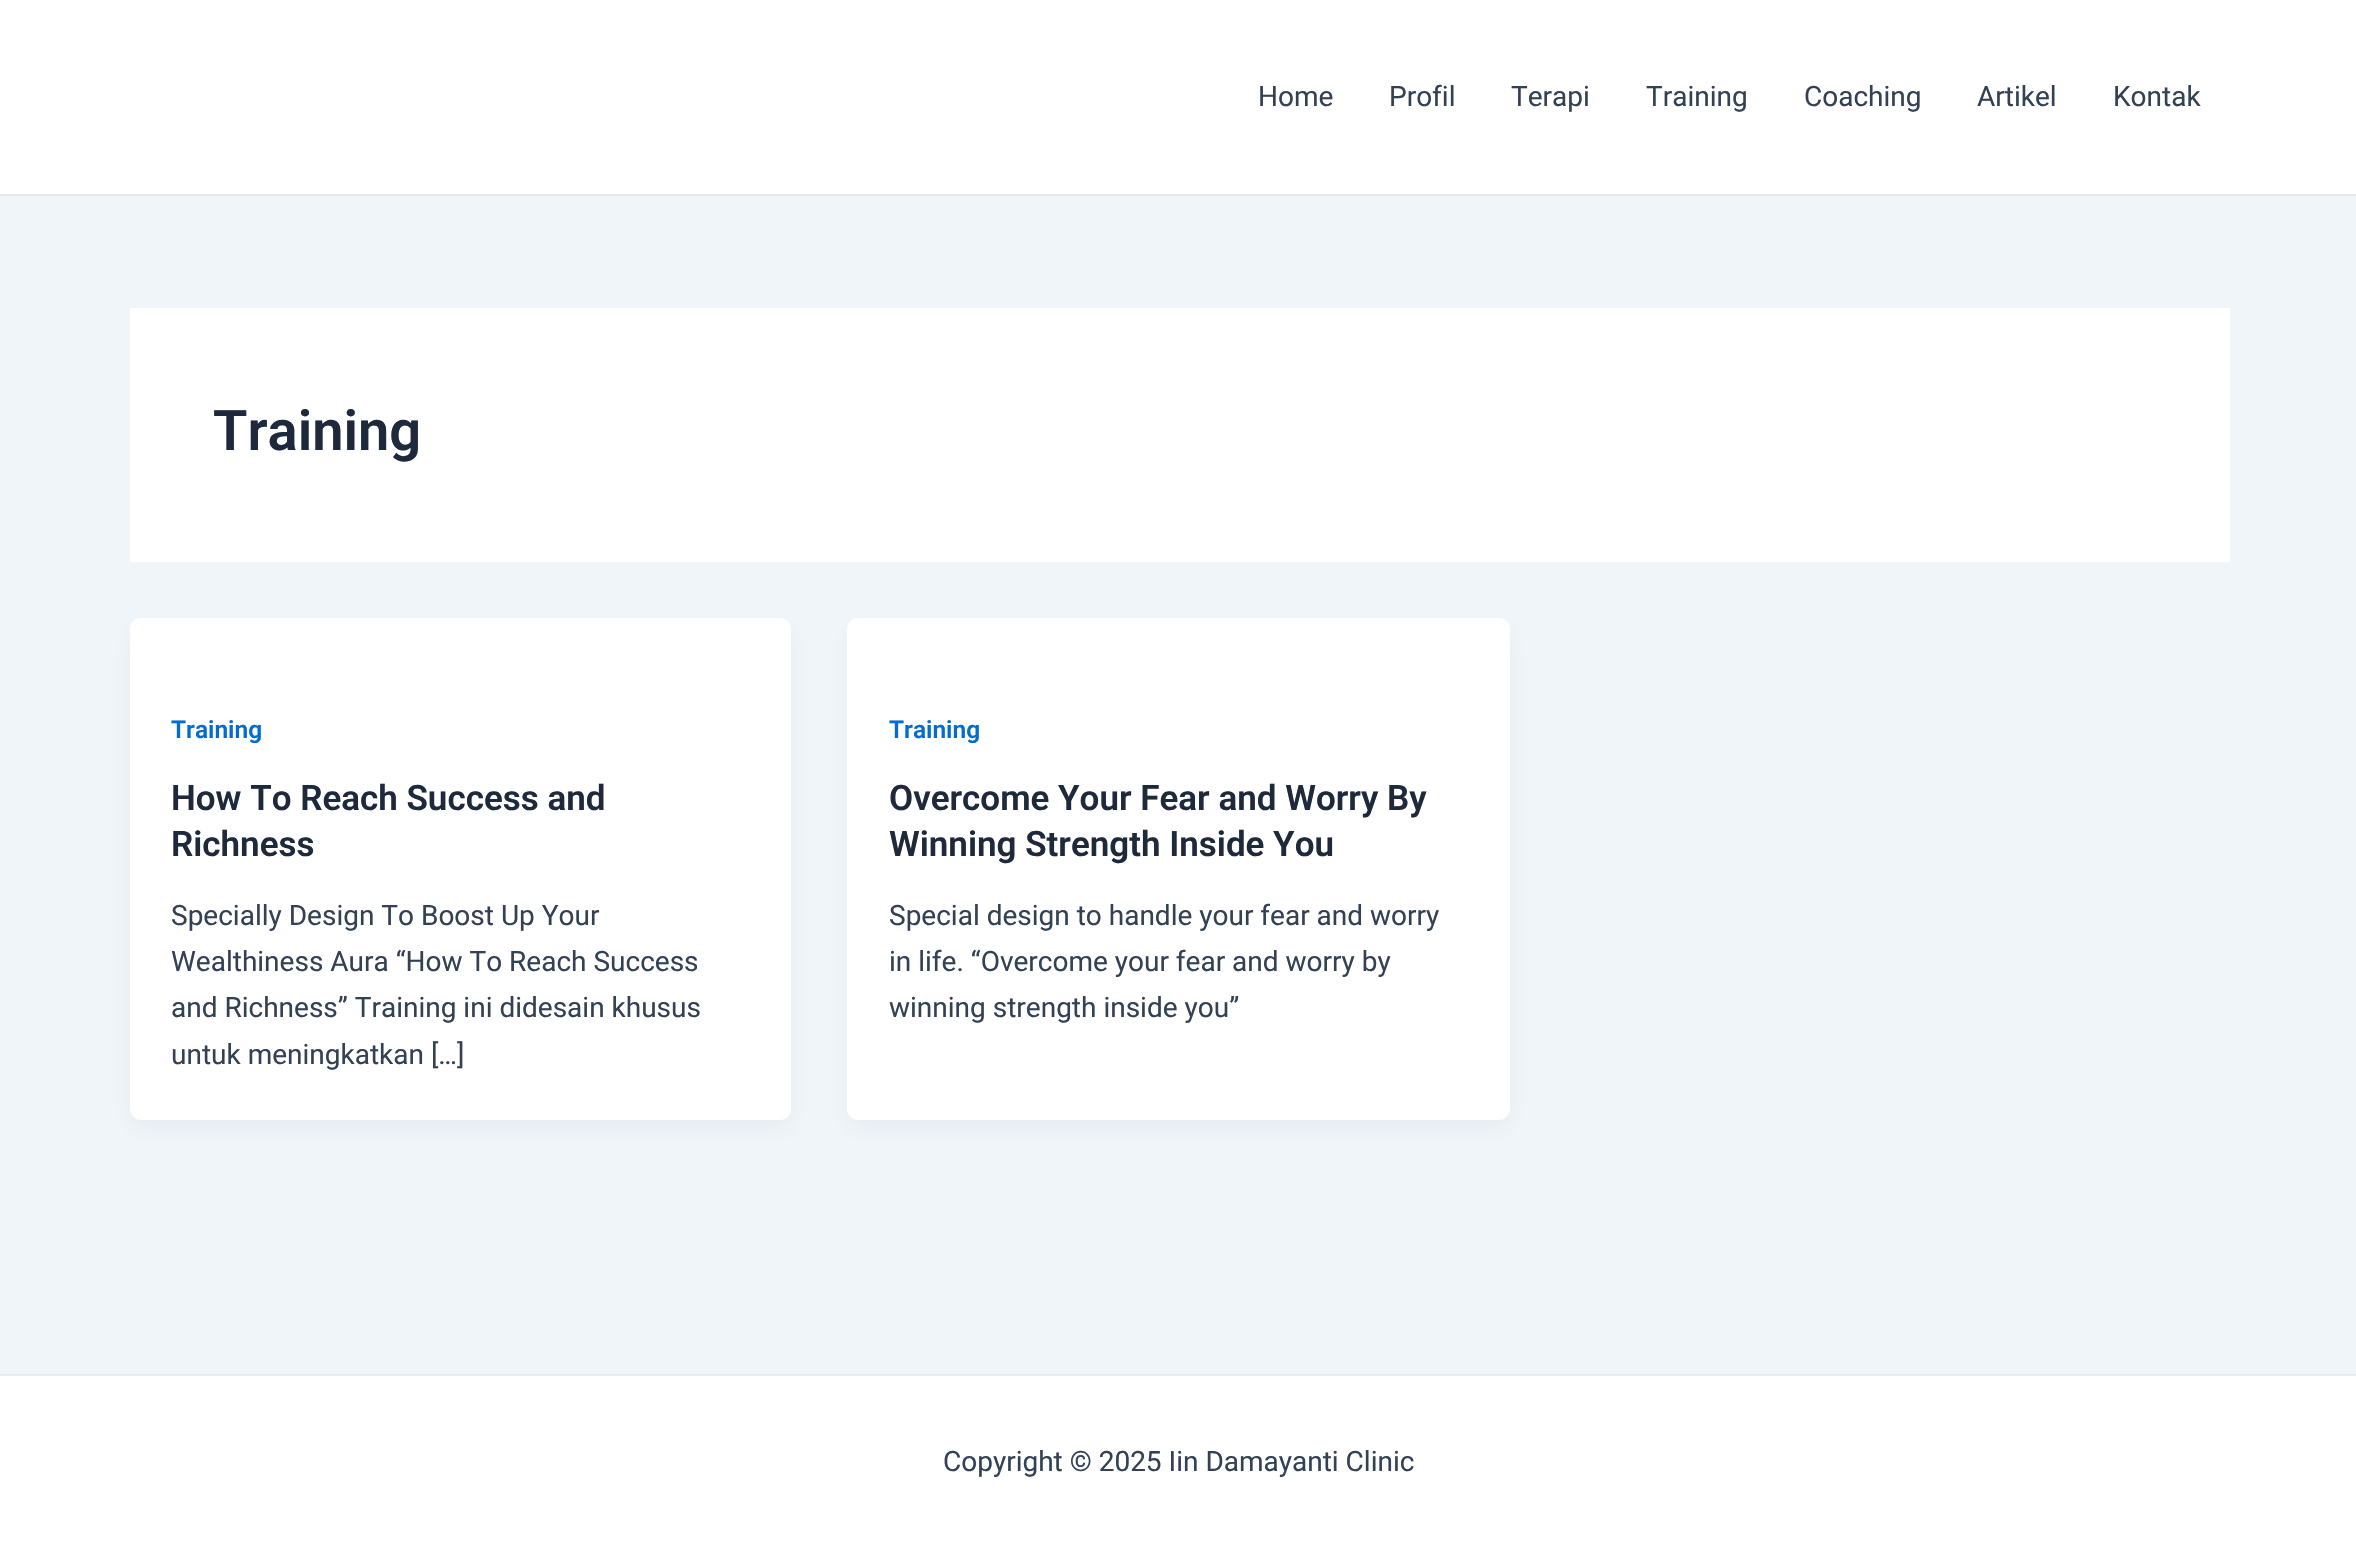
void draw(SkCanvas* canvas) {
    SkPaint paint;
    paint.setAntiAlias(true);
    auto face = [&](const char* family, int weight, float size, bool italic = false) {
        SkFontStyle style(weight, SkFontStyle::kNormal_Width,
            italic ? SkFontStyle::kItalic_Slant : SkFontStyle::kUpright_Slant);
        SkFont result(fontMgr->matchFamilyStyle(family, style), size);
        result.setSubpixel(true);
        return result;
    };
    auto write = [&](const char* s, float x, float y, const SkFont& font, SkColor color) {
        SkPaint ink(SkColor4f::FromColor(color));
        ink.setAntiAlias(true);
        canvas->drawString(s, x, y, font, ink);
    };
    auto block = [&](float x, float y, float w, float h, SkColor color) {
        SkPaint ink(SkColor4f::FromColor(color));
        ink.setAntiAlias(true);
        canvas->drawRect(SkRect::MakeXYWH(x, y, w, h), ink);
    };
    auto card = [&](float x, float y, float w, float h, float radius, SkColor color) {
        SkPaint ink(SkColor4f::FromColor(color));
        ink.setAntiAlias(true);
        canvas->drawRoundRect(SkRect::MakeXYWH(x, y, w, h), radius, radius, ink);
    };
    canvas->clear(SkColorSetRGB(240, 245, 250));
    block(0, 0, 2356, 194, SK_ColorWHITE);
    block(0, 194, 2356, 2, SkColorSetRGB(234, 234, 234));
    auto kFont1 = face("Roboto", 400, 28);
    write("Home", 1258, 106, kFont1, SkColorSetRGB(51, 65, 85));
    write("Profil", 1389, 106, kFont1, SkColorSetRGB(51, 65, 85));
    write("Terapi", 1511, 106, kFont1, SkColorSetRGB(51, 65, 85));
    write("Training", 1646, 106, kFont1, SkColorSetRGB(51, 65, 85));
    write("Coaching", 1804, 106, kFont1, SkColorSetRGB(51, 65, 85));
    write("Artikel", 1977, 106, kFont1, SkColorSetRGB(51, 65, 85));
    write("Kontak", 2113, 106, kFont1, SkColorSetRGB(51, 65, 85));
    block(130, 308, 2100, 254, SK_ColorWHITE);
    auto kFont2 = face("Roboto", 600, 56);
    write("Training", 213, 450, kFont2, SkColorSetRGB(30, 41, 59));
    paint.setColor(SkColorSetARGB(13, 16, 24, 40));
    paint.setMaskFilter(SkMaskFilter::MakeBlur(kNormal_SkBlurStyle, 13));
    canvas->drawRoundRect(SkRect::MakeXYWH(133, 632, 655, 495), 7, 7, paint);
    paint.setMaskFilter(nullptr);
    card(130, 618, 661, 502, 11, SK_ColorWHITE);
    auto kFont3 = face("Roboto", 600, 24.5f);
    write("Training", 171, 738, kFont3, SkColorSetRGB(4, 107, 210));
    auto kFont4 = face("Roboto", 600, 35);
    write("How To Reach Success and", 171, 810, kFont4, SkColorSetRGB(30, 41, 59));
    write("Richness", 171, 856, kFont4, SkColorSetRGB(30, 41, 59));
    write("Specially Design To Boost Up Your", 171, 925, kFont1, SkColorSetRGB(51, 65, 85));
    write("Wealthiness Aura “How To Reach Success", 171, 971, kFont1, SkColorSetRGB(51, 65, 85));
    write("and Richness” Training ini didesain khusus", 171, 1017, kFont1, SkColorSetRGB(51, 65, 85));
    write("untuk meningkatkan […]", 171, 1064, kFont1, SkColorSetRGB(51, 65, 85));
    paint.setMaskFilter(SkMaskFilter::MakeBlur(kNormal_SkBlurStyle, 13));
    canvas->drawRoundRect(SkRect::MakeXYWH(851, 632, 656, 495), 7, 7, paint);
    paint.setMaskFilter(nullptr);
    card(847, 618, 663, 502, 11, SK_ColorWHITE);
    write("Training", 889, 738, kFont3, SkColorSetRGB(4, 107, 210));
    write("Overcome Your Fear and Worry By", 889, 810, kFont4, SkColorSetRGB(30, 41, 59));
    write("Winning Strength Inside You", 889, 856, kFont4, SkColorSetRGB(30, 41, 59));
    write("Special design to handle your fear and worry", 889, 925, kFont1, SkColorSetRGB(51, 65, 85));
    write("in life. “Overcome your fear and worry by", 889, 971, kFont1, SkColorSetRGB(51, 65, 85));
    write("winning strength inside you”", 889, 1017, kFont1, SkColorSetRGB(51, 65, 85));
    block(0, 1376, 2356, 174, SK_ColorWHITE);
    block(0, 1374, 2356, 2, SkColorSetRGB(234, 234, 234));
    write("Copyright © 2025 Iin Damayanti Clinic", 943, 1471, kFont1, SkColorSetRGB(51, 65, 85));
}
